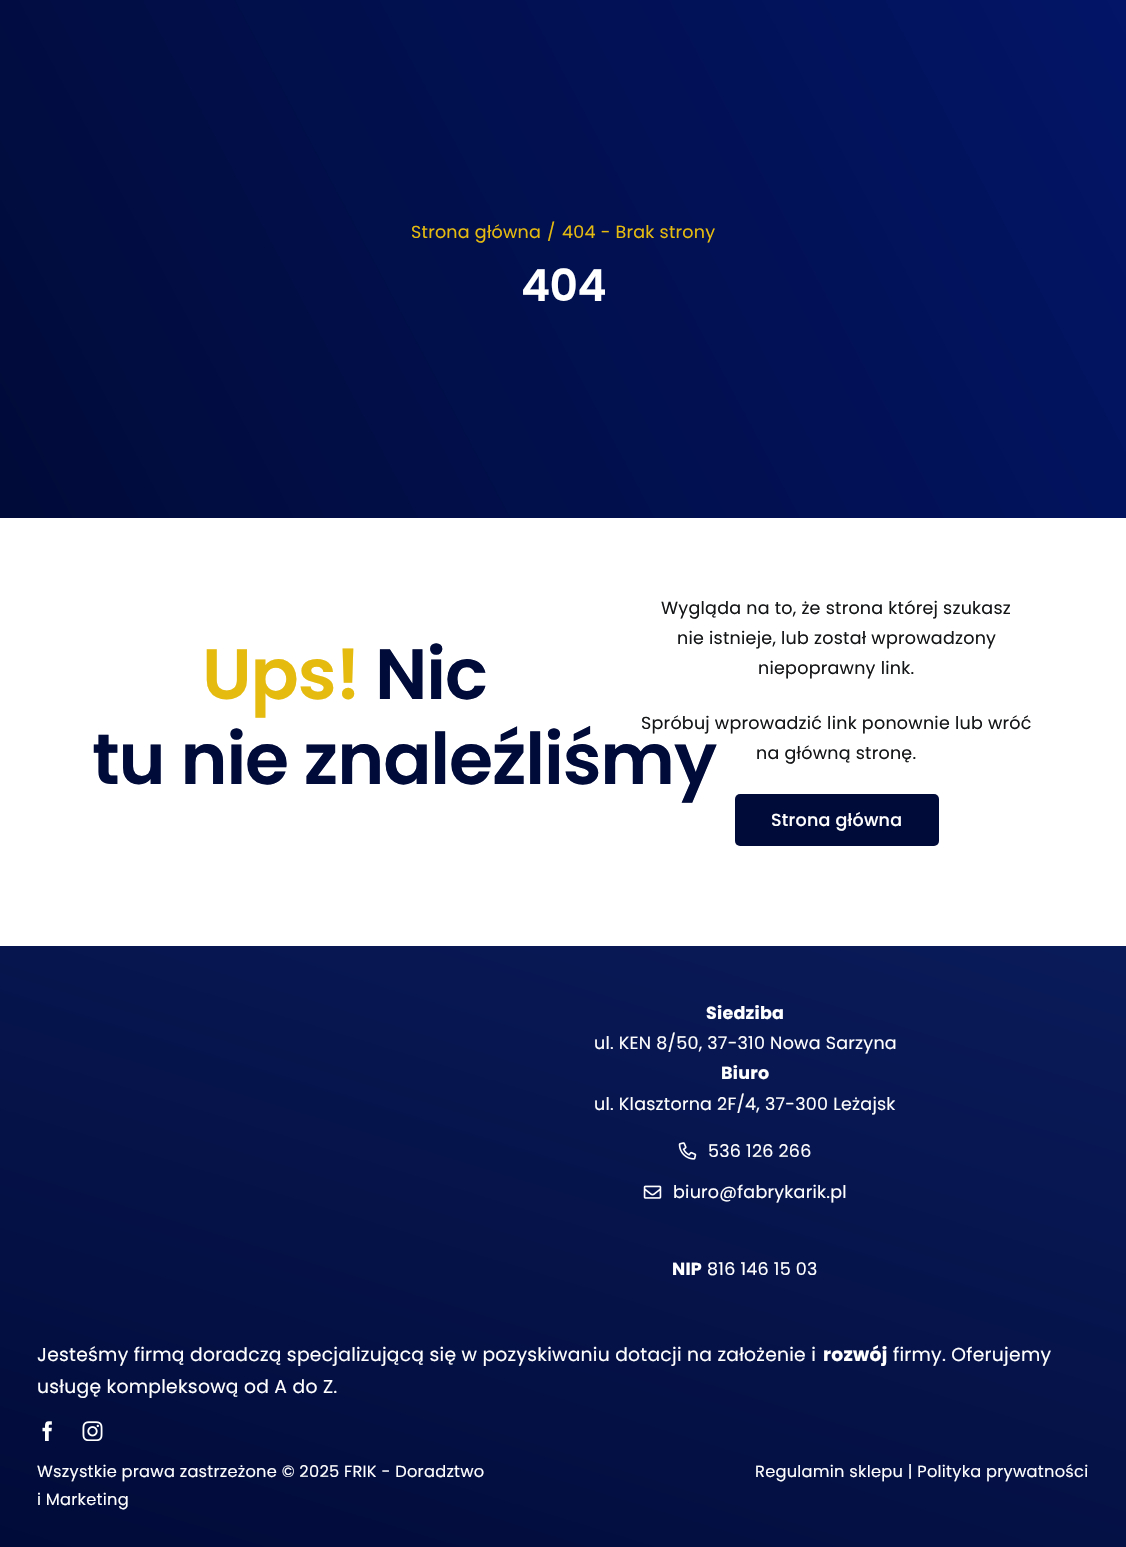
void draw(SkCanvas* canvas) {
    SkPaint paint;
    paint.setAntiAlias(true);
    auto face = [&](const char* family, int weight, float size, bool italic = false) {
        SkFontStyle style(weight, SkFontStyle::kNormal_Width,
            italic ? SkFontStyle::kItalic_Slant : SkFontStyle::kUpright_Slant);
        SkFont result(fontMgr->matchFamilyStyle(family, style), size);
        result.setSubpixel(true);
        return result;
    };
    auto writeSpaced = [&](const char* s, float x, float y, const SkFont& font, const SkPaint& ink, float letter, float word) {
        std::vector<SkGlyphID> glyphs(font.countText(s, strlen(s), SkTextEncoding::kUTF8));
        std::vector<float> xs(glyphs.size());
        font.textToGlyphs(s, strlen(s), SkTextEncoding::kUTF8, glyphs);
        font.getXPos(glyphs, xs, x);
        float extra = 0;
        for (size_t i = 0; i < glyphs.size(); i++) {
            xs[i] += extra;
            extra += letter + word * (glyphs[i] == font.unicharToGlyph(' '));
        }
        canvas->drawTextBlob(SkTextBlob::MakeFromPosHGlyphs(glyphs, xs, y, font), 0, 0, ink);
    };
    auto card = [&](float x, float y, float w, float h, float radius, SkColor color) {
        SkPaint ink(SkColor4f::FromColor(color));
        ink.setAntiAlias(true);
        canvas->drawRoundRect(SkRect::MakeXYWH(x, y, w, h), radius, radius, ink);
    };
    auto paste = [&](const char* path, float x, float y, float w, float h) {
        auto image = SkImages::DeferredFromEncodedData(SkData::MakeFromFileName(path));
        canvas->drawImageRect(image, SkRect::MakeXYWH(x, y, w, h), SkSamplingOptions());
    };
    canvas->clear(SK_ColorWHITE);
    {
        const SkColor colors[] = {SkColorSetRGB(1, 11, 57), SkColorSetRGB(2, 21, 104)};
        const float stops[] = {0, 1};
        const SkPoint ends[] = {{-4.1f, 510}, {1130, -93}};
        paint.setShader(SkGradientShader::MakeLinear(ends, colors, stops, 2, SkTileMode::kClamp));
        paint.setAlpha(255);
    }
    canvas->drawRect(SkRect::MakeXYWH(0, 0, 1126, 518), paint);
    auto kFont1 = face("Poppins", 400, 17.5f);
    paint.setShader(nullptr);
    paint.setColor(SkColorSetRGB(230, 187, 16));
    writeSpaced("Strona główna", 411, 238, kFont1, paint, 0.25f, 0);
    writeSpaced("/", 547, 238, kFont1, paint, 0.25f, 0);
    writeSpaced("404 - Brak strony", 562, 238, kFont1, paint, 0.25f, 0);
    auto kFont2 = face("Poppins", 600, 44);
    paint.setColor(SK_ColorWHITE);
    writeSpaced("404", 521, 301, kFont2, paint, -0.5f, 0);
    auto kFont3 = face("Poppins", 600, 71.25f);
    paint.setColor(SkColorSetRGB(230, 187, 16));
    writeSpaced("Ups!", 202, 699, kFont3, paint, -1.1f, 0);
    paint.setColor(SkColorSetRGB(1, 11, 57));
    writeSpaced("Nic", 375, 699, kFont3, paint, -1.1f, 0);
    writeSpaced("tu nie znaleźliśmy", 92, 784, kFont3, paint, -1.1f, 0);
    paint.setColor(SkColorSetRGB(20, 22, 23));
    writeSpaced("Wygląda na to, że strona której szukasz", 661, 614, kFont1, paint, 0.25f, 0);
    writeSpaced("nie istnieje, lub został wprowadzony", 677, 644, kFont1, paint, 0.25f, 0);
    writeSpaced("niepoprawny link.", 758, 674, kFont1, paint, 0.25f, 0);
    writeSpaced("Spróbuj wprowadzić link ponownie lub wróć", 641, 729, kFont1, paint, 0.25f, 0);
    writeSpaced("na główną stronę.", 756, 759, kFont1, paint, 0.25f, 0);
    card(735, 794, 204, 52, 5, SkColorSetRGB(1, 11, 57));
    auto kFont4 = face("Poppins", 500, 17.5f);
    paint.setColor(SK_ColorWHITE);
    writeSpaced("Strona główna", 771, 826, kFont4, paint, 0.25f, 0);
    {
        const SkColor colors[] = {SkColorSetRGB(1, 11, 57), SkColorSetRGB(10, 27, 90)};
        const float stops[] = {0, 1};
        const SkPoint ends[] = {{430, 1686}, {696, 815}};
        paint.setShader(SkGradientShader::MakeLinear(ends, colors, stops, 2, SkTileMode::kClamp));
        paint.setAlpha(255);
    }
    canvas->drawRect(SkRect::MakeXYWH(0, 946, 1126, 601), paint);
    auto kFont5 = face("Poppins", 700, 17.5f);
    paint.setShader(nullptr);
    paint.setColor(SK_ColorWHITE);
    writeSpaced("Siedziba", 706, 1019, kFont5, paint, 0.25f, 0);
    writeSpaced("ul. KEN 8/50, 37-310 Nowa Sarzyna", 594, 1049, kFont1, paint, 0.25f, 0);
    writeSpaced("Biuro", 721, 1079, kFont5, paint, 0.25f, 0);
    writeSpaced("ul. Klasztorna 2F/4, 37-300 Leżajsk", 594, 1110, kFont1, paint, 0.25f, 0);
    paste("pic1.png", 678, 1142, 19, 18);
    writeSpaced("536 126 266", 708, 1157, kFont1, paint, 0.25f, 0);
    paste("pic2.png", 643, 1185, 19, 14);
    writeSpaced("biuro@fabrykarik.pl", 673, 1198, kFont1, paint, 0.25f, 0);
    writeSpaced("NIP", 672, 1275, kFont5, paint, 0.25f, 0);
    writeSpaced("816 146 15 03", 707, 1275, kFont1, paint, 0.25f, 0);
    auto kFont6 = face("Poppins", 400, 18.75f);
    writeSpaced("Jesteśmy firmą doradczą specjalizującą się w pozyskiwaniu dotacji na założenie i", 37, 1361, kFont6, paint, 0.25f, 0);
    auto kFont7 = face("Poppins", 700, 18.75f);
    writeSpaced("rozwój", 823, 1361, kFont7, paint, 0.25f, 0);
    writeSpaced("firmy. Oferujemy", 893, 1361, kFont6, paint, 0.25f, 0);
    writeSpaced("usługę kompleksową od A do Z.", 37, 1393, kFont6, paint, 0.25f, 0);
    paste("pic3.png", 42, 1421, 10, 20);
    paste("pic4.png", 82, 1421, 21, 20);
    auto kFont8 = face("Poppins", 400, 16.25f);
    writeSpaced("Wszystkie prawa zastrzeżone © 2025 FRIK - Doradztwo", 37, 1477, kFont8, paint, 0.25f, 0);
    writeSpaced("i Marketing", 37, 1505, kFont8, paint, 0.25f, 0);
    writeSpaced("Regulamin sklepu | Polityka prywatności", 755, 1477, kFont8, paint, 0.25f, 0);
}
